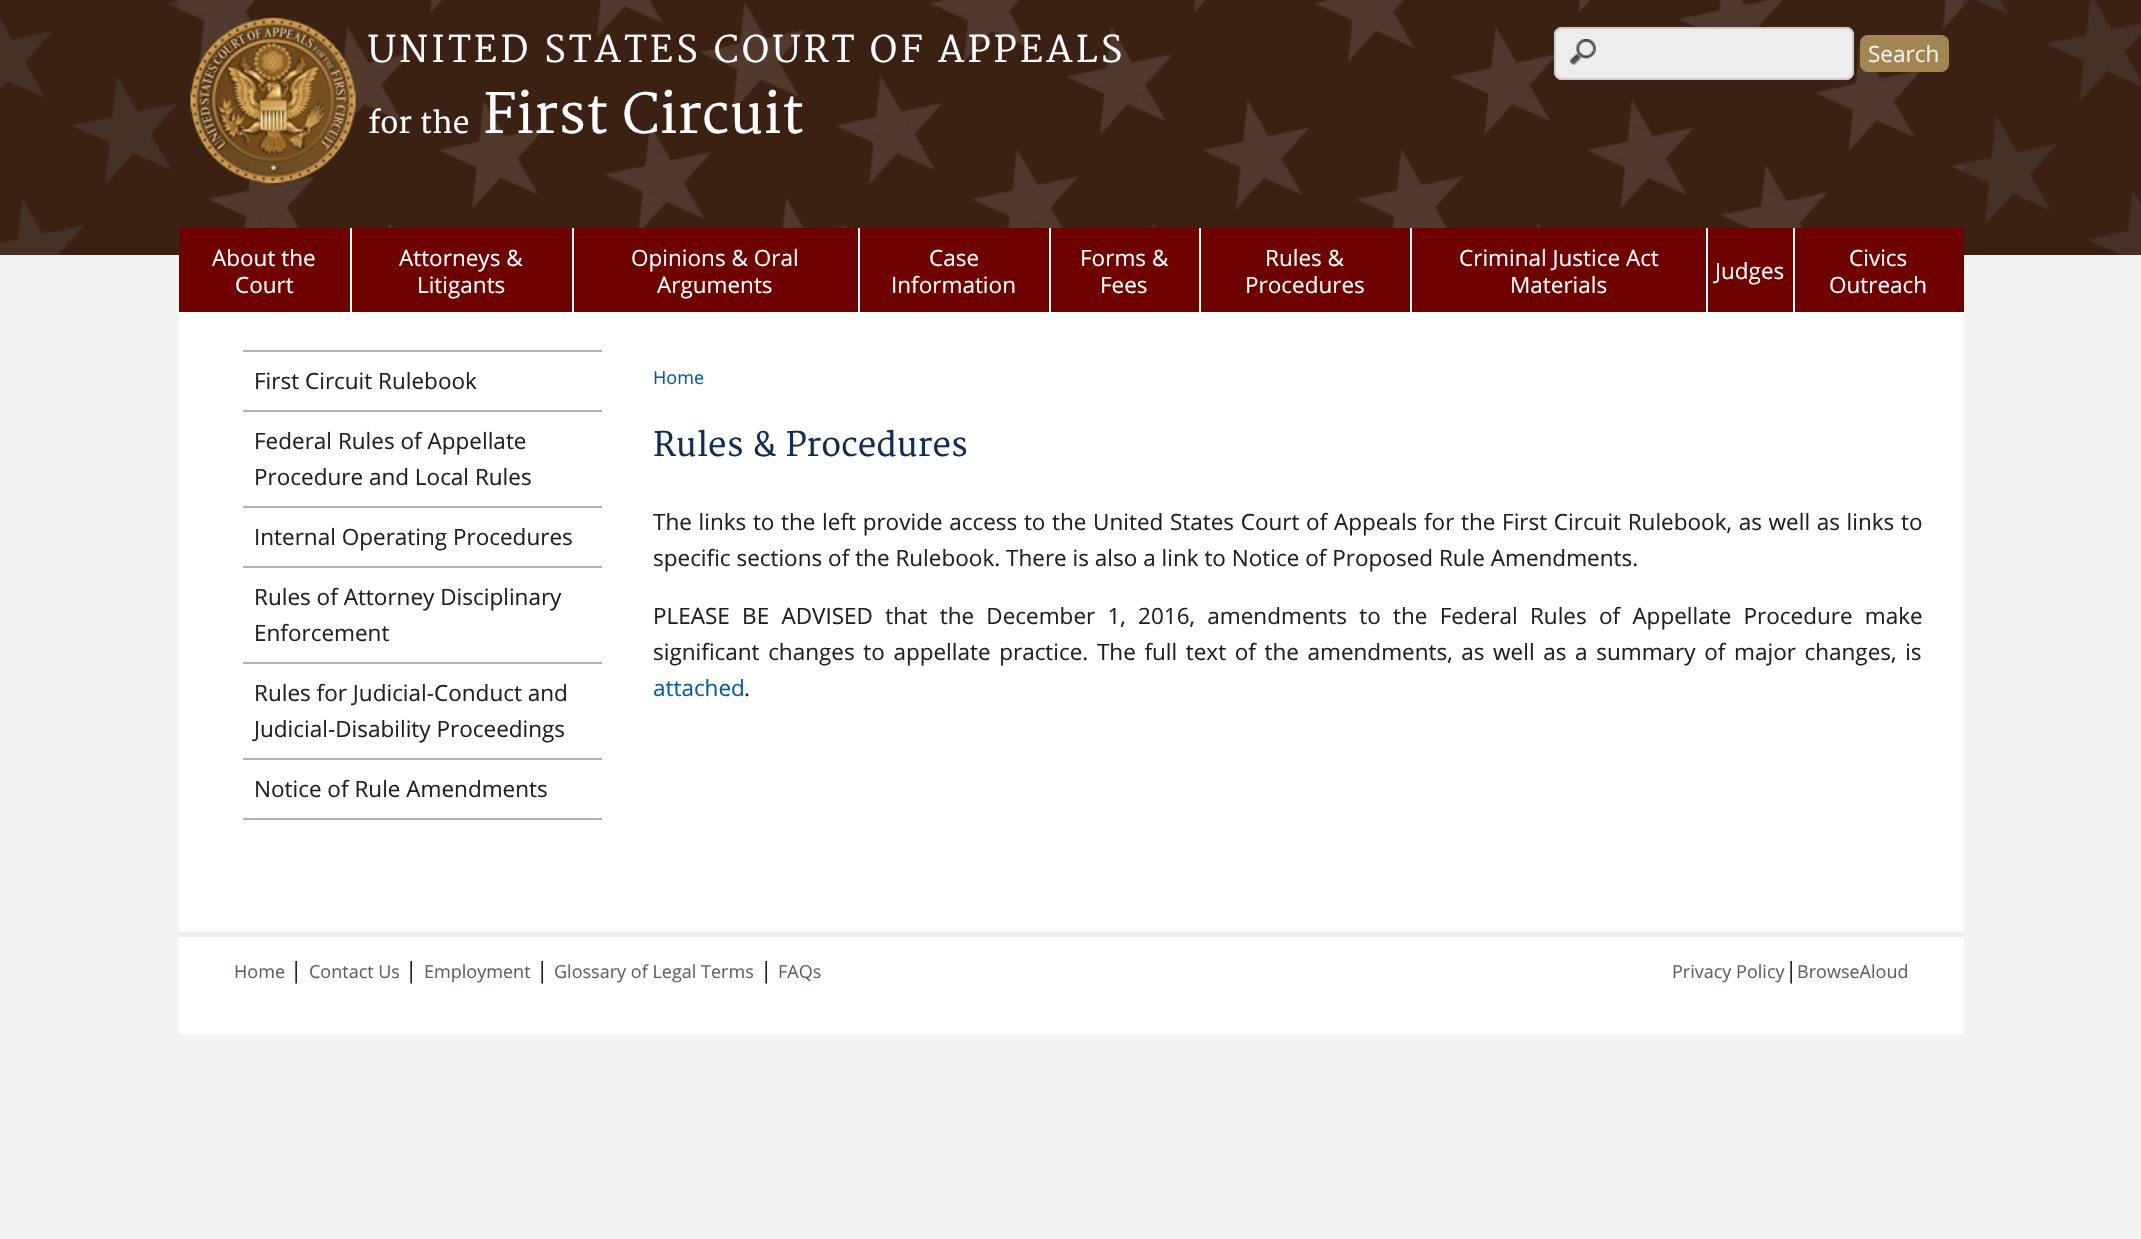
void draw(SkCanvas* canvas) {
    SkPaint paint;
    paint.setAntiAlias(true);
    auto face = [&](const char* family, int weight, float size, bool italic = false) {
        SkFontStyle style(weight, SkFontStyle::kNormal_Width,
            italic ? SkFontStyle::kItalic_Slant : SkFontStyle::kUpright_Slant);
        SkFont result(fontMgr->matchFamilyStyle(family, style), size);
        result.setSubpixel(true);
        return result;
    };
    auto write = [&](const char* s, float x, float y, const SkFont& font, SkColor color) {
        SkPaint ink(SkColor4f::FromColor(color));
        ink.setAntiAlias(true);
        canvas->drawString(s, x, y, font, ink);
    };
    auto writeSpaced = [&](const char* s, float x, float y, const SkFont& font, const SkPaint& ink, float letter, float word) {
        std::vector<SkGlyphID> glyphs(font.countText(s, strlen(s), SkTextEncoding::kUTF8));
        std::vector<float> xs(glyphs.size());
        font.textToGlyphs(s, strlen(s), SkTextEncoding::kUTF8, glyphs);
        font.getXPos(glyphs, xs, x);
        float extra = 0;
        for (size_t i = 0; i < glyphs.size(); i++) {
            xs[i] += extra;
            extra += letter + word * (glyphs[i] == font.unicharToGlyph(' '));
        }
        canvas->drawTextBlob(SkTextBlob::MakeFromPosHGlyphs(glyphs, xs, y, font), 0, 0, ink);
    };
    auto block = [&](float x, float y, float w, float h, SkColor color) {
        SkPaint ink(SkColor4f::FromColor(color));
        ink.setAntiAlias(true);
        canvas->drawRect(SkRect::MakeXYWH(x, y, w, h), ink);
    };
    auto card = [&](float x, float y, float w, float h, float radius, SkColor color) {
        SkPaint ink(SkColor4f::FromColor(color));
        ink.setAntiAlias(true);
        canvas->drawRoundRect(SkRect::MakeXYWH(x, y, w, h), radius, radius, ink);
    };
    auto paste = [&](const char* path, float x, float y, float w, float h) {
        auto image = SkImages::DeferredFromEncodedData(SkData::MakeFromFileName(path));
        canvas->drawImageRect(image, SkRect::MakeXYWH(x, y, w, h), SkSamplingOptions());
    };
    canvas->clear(SkColorSetRGB(243, 243, 243));
    block(0, 0, 2141, 255, SkColorSetRGB(59, 33, 20));
    paste("pic1.png", 0, 0, 2141, 255);
    block(179, 312, 1785, 722, SK_ColorWHITE);
    block(1963, 0, 1, 173, SkColorSetRGB(59, 33, 19));
    paste("pic2.png", 178, 0, 1786, 255);
    paste("pic3.png", 190, 17, 166, 167);
    auto kFont1 = face("Merriweather", 400, 36);
    paint.setColor(SK_ColorWHITE);
    writeSpaced("UNITED STATES COURT OF APPEALS", 368, 62, kFont1, paint, 3.3f, 0);
    auto kFont2 = face("Merriweather", 400, 30);
    write("for the", 368, 133, kFont2, SK_ColorWHITE);
    auto kFont3 = face("Merriweather", 400, 54);
    write("First Circuit", 483, 133, kFont3, SK_ColorWHITE);
    card(1554, 27, 300, 53, 8, SkColorSetRGB(237, 237, 237));
    paste("pic4.png", 1569, 39, 27, 27);
    paint.setStyle(SkPaint::kStroke_Style);
    paint.setStrokeWidth(2);
    paint.setColor(SkColorSetRGB(204, 204, 204));
    canvas->drawRoundRect(SkRect::MakeXYWH(1555, 28, 298, 51), 7, 7, paint);
    card(1860, 35, 89, 37, 8, SkColorSetRGB(163, 133, 82));
    auto kFont4 = face("Open Sans", 400, 22.5f);
    write("Search", 1868, 62, kFont4, SkColorSetRGB(241, 241, 241));
    block(179, 228, 1785, 84, SkColorSetRGB(110, 0, 0));
    block(350, 228, 2, 84, SK_ColorWHITE);
    write("About the", 212, 266, kFont4, SK_ColorWHITE);
    write("Court", 235, 293, kFont4, SK_ColorWHITE);
    block(572, 228, 2, 84, SK_ColorWHITE);
    write("Attorneys &", 399, 266, kFont4, SK_ColorWHITE);
    write("Litigants", 417, 293, kFont4, SK_ColorWHITE);
    block(858, 228, 2, 84, SK_ColorWHITE);
    write("Opinions & Oral", 631, 266, kFont4, SK_ColorWHITE);
    write("Arguments", 657, 293, kFont4, SK_ColorWHITE);
    block(1049, 228, 2, 84, SK_ColorWHITE);
    write("Case", 929, 266, kFont4, SK_ColorWHITE);
    write("Information", 891, 293, kFont4, SK_ColorWHITE);
    block(1199, 228, 2, 84, SK_ColorWHITE);
    write("Forms &", 1080, 266, kFont4, SK_ColorWHITE);
    write("Fees", 1100, 293, kFont4, SK_ColorWHITE);
    block(1410, 228, 2, 84, SK_ColorWHITE);
    write("Rules &", 1265, 266, kFont4, SK_ColorWHITE);
    write("Procedures", 1245, 293, kFont4, SK_ColorWHITE);
    block(1706, 228, 2, 84, SK_ColorWHITE);
    write("Criminal Justice Act", 1459, 266, kFont4, SK_ColorWHITE);
    write("Materials", 1510, 293, kFont4, SK_ColorWHITE);
    block(1793, 228, 2, 84, SK_ColorWHITE);
    write("Judges", 1715, 279, kFont4, SK_ColorWHITE);
    write("Civics", 1849, 266, kFont4, SK_ColorWHITE);
    write("Outreach", 1829, 293, kFont4, SK_ColorWHITE);
    block(243, 350, 359, 2, SkColorSetRGB(174, 176, 181));
    write("First Circuit Rulebook", 254, 389, kFont4, SkColorSetRGB(33, 33, 33));
    block(243, 410, 359, 2, SkColorSetRGB(174, 176, 181));
    write("Federal Rules of Appellate", 254, 449, kFont4, SkColorSetRGB(33, 33, 33));
    write("Procedure and Local Rules", 254, 485, kFont4, SkColorSetRGB(33, 33, 33));
    block(243, 506, 359, 2, SkColorSetRGB(174, 176, 181));
    write("Internal Operating Procedures", 254, 545, kFont4, SkColorSetRGB(33, 33, 33));
    block(243, 566, 359, 2, SkColorSetRGB(174, 176, 181));
    write("Rules of Attorney Disciplinary", 254, 605, kFont4, SkColorSetRGB(33, 33, 33));
    write("Enforcement", 254, 641, kFont4, SkColorSetRGB(33, 33, 33));
    block(243, 662, 359, 2, SkColorSetRGB(174, 176, 181));
    write("Rules for Judicial-Conduct and", 254, 701, kFont4, SkColorSetRGB(33, 33, 33));
    write("Judicial-Disability Proceedings", 254, 737, kFont4, SkColorSetRGB(33, 33, 33));
    block(243, 758, 359, 2, SkColorSetRGB(174, 176, 181));
    block(243, 818, 359, 2, SkColorSetRGB(174, 176, 181));
    write("Notice of Rule Amendments", 254, 797, kFont4, SkColorSetRGB(33, 33, 33));
    auto kFont5 = face("Open Sans", 400, 18);
    write("Home", 653, 384, kFont5, SkColorSetRGB(0, 94, 162));
    auto kFont6 = face("Merriweather", 400, 33);
    write("Rules & Procedures", 653, 456, kFont6, SkColorSetRGB(17, 46, 81));
    paint.setStyle(SkPaint::kFill_Style);
    paint.setColor(SkColorSetRGB(33, 33, 33));
    writeSpaced("The links to the left provide access to the United States Court of Appeals for the First Circuit Rulebook, as well as links to", 653, 530, kFont4, paint, 0, 0.8f);
    write("specific sections of the Rulebook. There is also a link to Notice of Proposed Rule Amendments.", 653, 566, kFont4, SkColorSetRGB(33, 33, 33));
    writeSpaced("PLEASE BE ADVISED that the December 1, 2016, amendments to the Federal Rules of Appellate Procedure make", 653, 624, kFont4, paint, 0, 6.4f);
    writeSpaced("significant changes to appellate practice. The full text of the amendments, as well as a summary of major changes, is", 653, 660, kFont4, paint, 0, 2.75f);
    write("attached", 653, 696, kFont4, SkColorSetRGB(0, 94, 162));
    write(".", 744, 696, kFont4, SkColorSetRGB(33, 33, 33));
    block(179, 932, 1785, 5, SkColorSetRGB(238, 238, 238));
    write("Home", 234, 978, kFont5, SkColorSetRGB(91, 97, 107));
    write("|", 290, 978, kFont4, SkColorSetRGB(33, 33, 33));
    write("Contact Us", 309, 978, kFont5, SkColorSetRGB(91, 97, 107));
    write("|", 405, 978, kFont4, SkColorSetRGB(33, 33, 33));
    write("Employment", 424, 978, kFont5, SkColorSetRGB(91, 97, 107));
    write("|", 536, 978, kFont4, SkColorSetRGB(33, 33, 33));
    write("Glossary of Legal Terms", 554, 978, kFont5, SkColorSetRGB(91, 97, 107));
    write("|", 760, 978, kFont4, SkColorSetRGB(33, 33, 33));
    write("FAQs", 778, 978, kFont5, SkColorSetRGB(91, 97, 107));
    write("Privacy Policy", 1672, 978, kFont5, SkColorSetRGB(91, 97, 107));
    write("|", 1785, 978, kFont4, SkColorSetRGB(33, 33, 33));
    write("BrowseAloud", 1797, 978, kFont5, SkColorSetRGB(91, 97, 107));
}
